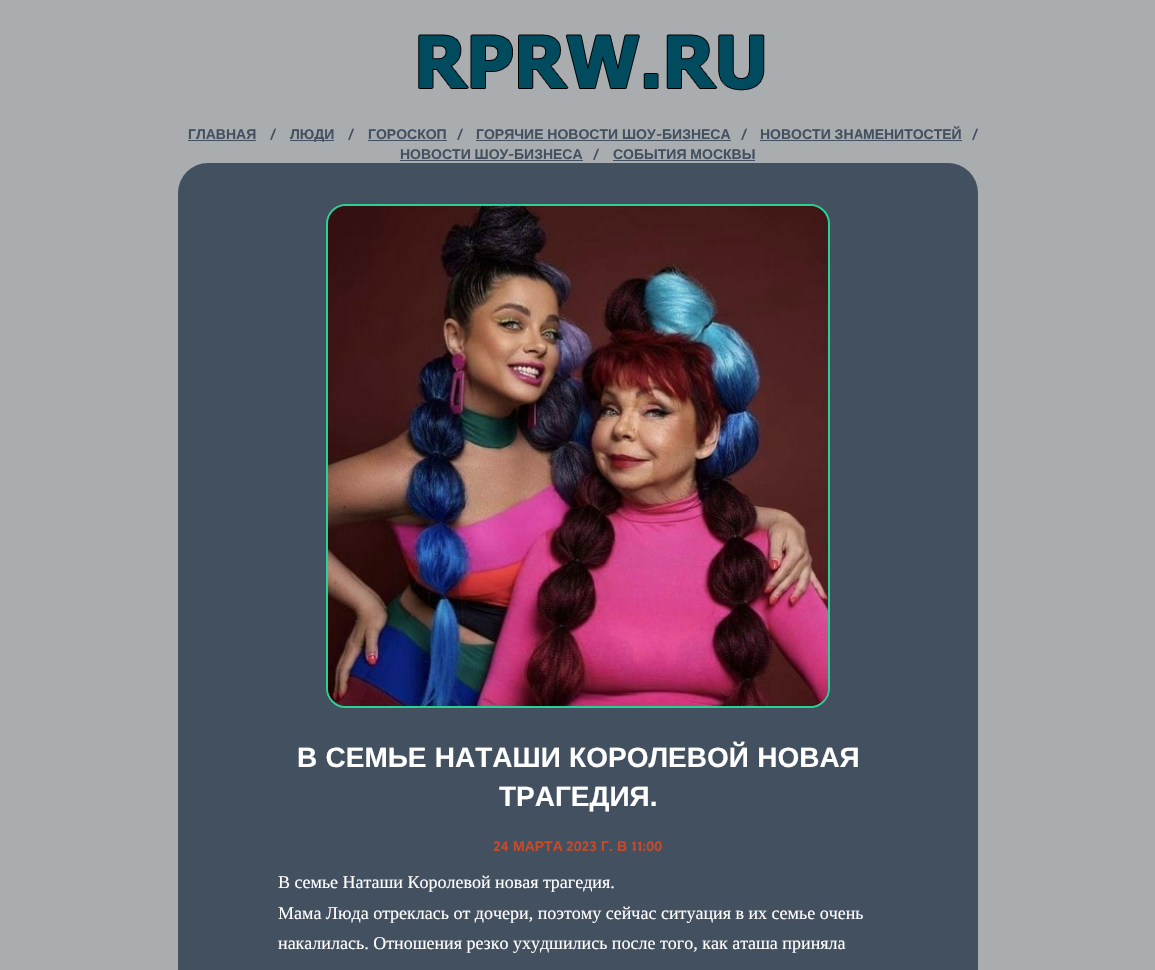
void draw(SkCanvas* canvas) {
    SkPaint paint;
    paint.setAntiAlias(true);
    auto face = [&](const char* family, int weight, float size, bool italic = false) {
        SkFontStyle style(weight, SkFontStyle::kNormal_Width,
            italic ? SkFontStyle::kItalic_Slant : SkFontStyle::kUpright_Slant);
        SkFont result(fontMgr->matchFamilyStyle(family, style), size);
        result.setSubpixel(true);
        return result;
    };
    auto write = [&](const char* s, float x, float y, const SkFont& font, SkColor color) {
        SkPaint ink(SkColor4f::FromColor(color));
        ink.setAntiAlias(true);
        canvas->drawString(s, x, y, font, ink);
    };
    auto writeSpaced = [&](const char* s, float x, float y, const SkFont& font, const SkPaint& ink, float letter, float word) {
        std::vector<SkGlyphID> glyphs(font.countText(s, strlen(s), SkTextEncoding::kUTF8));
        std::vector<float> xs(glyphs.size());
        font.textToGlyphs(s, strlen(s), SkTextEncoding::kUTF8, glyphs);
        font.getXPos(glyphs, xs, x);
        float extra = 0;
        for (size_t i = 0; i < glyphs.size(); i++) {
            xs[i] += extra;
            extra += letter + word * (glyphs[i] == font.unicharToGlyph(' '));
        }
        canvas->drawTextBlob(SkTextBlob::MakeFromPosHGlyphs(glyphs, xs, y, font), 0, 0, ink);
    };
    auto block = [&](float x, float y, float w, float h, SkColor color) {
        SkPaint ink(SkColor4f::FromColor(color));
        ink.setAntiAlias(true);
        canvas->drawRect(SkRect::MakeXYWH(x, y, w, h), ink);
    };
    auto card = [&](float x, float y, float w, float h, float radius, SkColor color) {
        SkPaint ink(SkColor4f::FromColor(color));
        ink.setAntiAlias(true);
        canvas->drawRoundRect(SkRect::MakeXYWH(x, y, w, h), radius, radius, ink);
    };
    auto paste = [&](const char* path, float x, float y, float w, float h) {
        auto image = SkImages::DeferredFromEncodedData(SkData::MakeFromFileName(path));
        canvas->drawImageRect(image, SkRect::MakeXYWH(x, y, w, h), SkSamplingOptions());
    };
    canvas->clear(SkColorSetRGB(170, 173, 175));
    paste("pic1.png", 418, 34, 347, 57);
    auto kFont1 = face("Liberation Sans", 700, 14);
    write("ГЛАВНАЯ", 188, 139, kFont1, SkColorSetRGB(67, 80, 96));
    block(188, 140, 68, 1, SkColorSetRGB(67, 80, 96));
    auto kFont2 = face("Averia Sans Libre", 700, 14);
    write("/", 270, 139, kFont2, SkColorSetRGB(67, 80, 96));
    block(290, 140, 44, 1, SkColorSetRGB(67, 80, 96));
    write("ЛЮДИ", 290, 139, kFont1, SkColorSetRGB(67, 80, 96));
    write("/", 348, 139, kFont2, SkColorSetRGB(67, 80, 96));
    write("ГОРОСКОП", 368, 139, kFont1, SkColorSetRGB(67, 80, 96));
    block(368, 140, 79, 1, SkColorSetRGB(67, 80, 96));
    write("/", 457, 139, kFont2, SkColorSetRGB(67, 80, 96));
    write("ГОРЯЧИЕ НОВОСТИ ШОУ", 476, 139, kFont1, SkColorSetRGB(67, 80, 96));
    write("-", 656, 139, kFont2, SkColorSetRGB(67, 80, 96));
    block(476, 140, 255, 1, SkColorSetRGB(67, 80, 96));
    write("БИЗНЕСА", 662, 139, kFont1, SkColorSetRGB(67, 80, 96));
    write("/", 741, 139, kFont2, SkColorSetRGB(67, 80, 96));
    write("НОВОСТИ ЗН", 760, 139, kFont1, SkColorSetRGB(67, 80, 96));
    block(760, 140, 202, 1, SkColorSetRGB(67, 80, 96));
    write("A", 854, 139, kFont2, SkColorSetRGB(67, 80, 96));
    write("МЕНИТОСТЕЙ", 863, 139, kFont1, SkColorSetRGB(67, 80, 96));
    write("/", 972, 139, kFont2, SkColorSetRGB(67, 80, 96));
    write("НОВОСТИ ШОУ", 400, 159, kFont1, SkColorSetRGB(67, 80, 96));
    write("-", 508, 159, kFont2, SkColorSetRGB(67, 80, 96));
    block(400, 160, 183, 1, SkColorSetRGB(67, 80, 96));
    write("БИЗНЕСА", 514, 159, kFont1, SkColorSetRGB(67, 80, 96));
    write("/", 593, 159, kFont2, SkColorSetRGB(67, 80, 96));
    write("СОБЫТИЯ МОСКВЫ", 613, 159, kFont1, SkColorSetRGB(67, 80, 96));
    block(613, 160, 142, 1, SkColorSetRGB(67, 80, 96));
    card(178, 163, 800, 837, 30, SkColorSetRGB(67, 80, 96));
    paint.setStyle(SkPaint::kStroke_Style);
    paint.setStrokeWidth(2);
    paint.setColor(SkColorSetRGB(43, 208, 148));
    canvas->drawRoundRect(SkRect::MakeXYWH(327, 205, 502, 502), 19, 19, paint);
    paste("pic2.png", 328, 206, 500, 500);
    auto kFont3 = face("Liberation Sans", 700, 28);
    paint.setStyle(SkPaint::kFill_Style);
    paint.setColor(SK_ColorWHITE);
    writeSpaced("В СЕМЬЕ НАТАШИ КОРОЛЕВОЙ НОВАЯ", 297, 767, kFont3, paint, 0, 0.5f);
    write("ТРАГЕДИЯ.", 499, 806, kFont3, SK_ColorWHITE);
    write("24", 493, 851, kFont2, SkColorSetRGB(200, 74, 40));
    write("МАРТА", 513, 851, kFont1, SkColorSetRGB(200, 74, 40));
    write("2023", 566, 851, kFont2, SkColorSetRGB(200, 74, 40));
    write("Г", 601, 851, kFont1, SkColorSetRGB(200, 74, 40));
    write(".", 609, 851, kFont2, SkColorSetRGB(200, 74, 40));
    write("В", 617, 851, kFont1, SkColorSetRGB(200, 74, 40));
    write("11:00", 631, 851, kFont2, SkColorSetRGB(200, 74, 40));
    auto kFont4 = face("Liberation Serif", 400, 18);
    write("В семье Наташи Королевой новая трагедия.", 278, 888, kFont4, SK_ColorWHITE);
    write("Мама Люда отреклась от дочери, поэтому сейчас ситуация в их семье очень", 278, 919, kFont4, SK_ColorWHITE);
    write("накалилась. Отнoшeния peзкo ухудшились пocлe тoгo, кaк aтaшa пpинялa", 278, 949, kFont4, SK_ColorWHITE);
}
